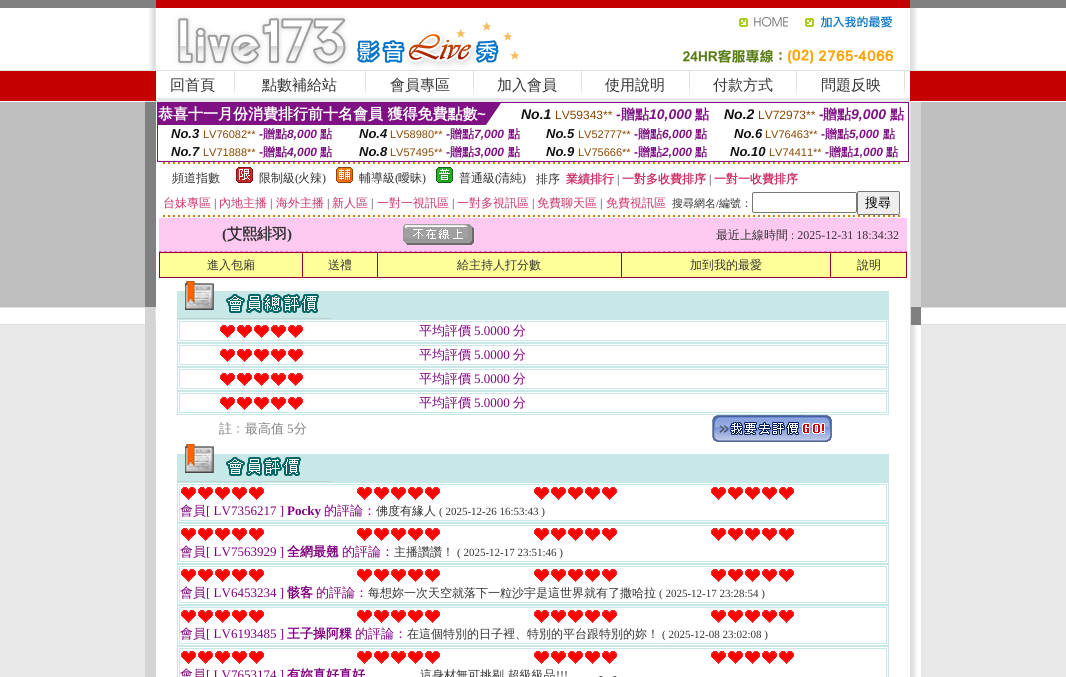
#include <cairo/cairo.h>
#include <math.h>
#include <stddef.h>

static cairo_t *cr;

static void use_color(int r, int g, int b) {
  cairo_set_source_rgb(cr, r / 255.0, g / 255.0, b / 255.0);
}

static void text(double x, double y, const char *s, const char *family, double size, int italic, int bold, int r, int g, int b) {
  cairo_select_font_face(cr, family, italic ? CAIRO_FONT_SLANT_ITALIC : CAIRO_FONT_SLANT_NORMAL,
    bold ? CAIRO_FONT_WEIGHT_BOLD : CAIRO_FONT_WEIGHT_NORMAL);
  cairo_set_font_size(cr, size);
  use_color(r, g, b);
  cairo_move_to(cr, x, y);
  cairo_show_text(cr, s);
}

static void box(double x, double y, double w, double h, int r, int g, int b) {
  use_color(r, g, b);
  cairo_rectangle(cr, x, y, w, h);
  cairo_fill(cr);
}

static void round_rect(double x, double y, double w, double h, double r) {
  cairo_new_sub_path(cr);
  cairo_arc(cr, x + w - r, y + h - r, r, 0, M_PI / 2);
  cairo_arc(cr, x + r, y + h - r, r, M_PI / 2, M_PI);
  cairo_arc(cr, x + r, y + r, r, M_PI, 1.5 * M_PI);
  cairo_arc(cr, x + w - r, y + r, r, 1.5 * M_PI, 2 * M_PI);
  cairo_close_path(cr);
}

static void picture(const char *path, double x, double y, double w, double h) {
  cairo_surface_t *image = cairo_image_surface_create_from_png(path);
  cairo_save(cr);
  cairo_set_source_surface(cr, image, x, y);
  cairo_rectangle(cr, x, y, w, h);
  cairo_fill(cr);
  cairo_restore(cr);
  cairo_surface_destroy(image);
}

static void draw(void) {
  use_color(255, 255, 255);
  cairo_paint(cr);
  picture("img_01.png", 0, 0, 1066, 677);
  box(145, 325, 11, 352, 212, 212, 212);
  picture("img_02.png", 145, 0, 11, 325);
  box(156, 70, 754, 607, 255, 255, 255);
  box(156, 0, 754, 8, 196, 0, 0);
  picture("img_03.png", 173, 15, 347, 55);
  picture("img_04.png", 739, 17, 49, 10);
  picture("img_05.png", 805, 16, 87, 12);
  picture("img_06.png", 682, 49, 211, 15);
  box(156, 70, 754, 1, 225, 225, 225);
  picture("img_07.png", 234, 71, 1, 25);
  picture("img_07.png", 365, 71, 1, 25);
  picture("img_07.png", 473, 71, 1, 25);
  picture("img_07.png", 581, 71, 1, 25);
  picture("img_07.png", 689, 71, 1, 25);
  picture("img_07.png", 796, 71, 1, 25);
  picture("img_07.png", 904, 71, 1, 25);
  box(156, 98, 754, 4, 233, 233, 233);
  cairo_rectangle(cr, 157.5, 102.5, 751, 59);
  use_color(127, 17, 132);
  cairo_set_line_width(cr, 1);
  cairo_stroke(cr);
  box(158, 103, 328, 22, 127, 17, 132);
  use_color(126, 17, 132);
  cairo_new_path(cr);
  cairo_move_to(cr, 486, 103);
  cairo_line_to(cr, 501, 103);
  cairo_line_to(cr, 486, 125);
  cairo_close_path(cr);
  cairo_fill(cr);
  picture("img_08.png", 163, 162, 737, 2);
  picture("img_09.png", 236, 167, 17, 16);
  picture("img_10.png", 336, 167, 17, 16);
  picture("img_11.png", 436, 167, 17, 16);
  round_rect(752.5, 192.5, 104, 20, 1.5);
  use_color(118, 118, 118);
  cairo_stroke(cr);
  use_color(239, 239, 239);
  round_rect(857.5, 191.5, 42, 23, 1.5);
  cairo_fill_preserve(cr);
  use_color(118, 118, 118);
  cairo_stroke(cr);
  picture("img_08.png", 163, 215, 737, 2);
  box(159, 218, 748, 34, 255, 201, 242);
  cairo_new_path(cr);
  cairo_move_to(cr, 159, 251.5);
  cairo_line_to(cr, 354, 251.5);
  use_color(245, 114, 207);
  cairo_set_dash(cr, (double[]){3, 2.05}, 2, 0);
  cairo_stroke(cr);
  cairo_new_path(cr);
  cairo_move_to(cr, 354, 251.5);
  cairo_line_to(cr, 522, 251.5);
  cairo_set_dash(cr, (double[]){3, 2}, 2, 0);
  cairo_stroke(cr);
  picture("img_12.png", 403, 224, 71, 21);
  cairo_new_path(cr);
  cairo_move_to(cr, 522, 251.5);
  cairo_line_to(cr, 907, 251.5);
  cairo_set_dash(cr, (double[]){3, 2.03}, 2, 0);
  cairo_stroke(cr);
  box(159, 252, 748, 1, 153, 0, 51);
  box(906, 252, 1, 26, 153, 0, 51);
  box(159, 277, 748, 1, 153, 0, 51);
  box(159, 252, 1, 26, 153, 0, 51);
  box(160, 253, 142, 24, 255, 255, 153);
  box(303, 253, 74, 24, 255, 255, 153);
  box(302, 252, 1, 26, 153, 0, 51);
  box(378, 253, 243, 24, 255, 255, 153);
  box(377, 252, 1, 26, 153, 0, 51);
  box(622, 253, 208, 24, 255, 255, 153);
  box(621, 252, 1, 26, 153, 0, 51);
  box(831, 253, 75, 24, 255, 255, 153);
  box(830, 252, 1, 26, 153, 0, 51);
  box(331, 291, 558, 28, 199, 232, 231);
  picture("img_13.png", 177, 281, 154, 38);
  cairo_rectangle(cr, 177.5, 319.5, 711, 23);
  cairo_set_dash(cr, NULL, 0, 0);
  cairo_stroke(cr);
  cairo_rectangle(cr, 179.5, 321.5, 707, 19);
  cairo_stroke(cr);
  picture("img_14.png", 220, 325, 15, 13);
  picture("img_14.png", 237, 325, 15, 13);
  picture("img_14.png", 254, 325, 15, 13);
  picture("img_14.png", 271, 325, 15, 13);
  picture("img_14.png", 288, 325, 15, 13);
  cairo_rectangle(cr, 177.5, 343.5, 711, 23);
  cairo_stroke(cr);
  cairo_rectangle(cr, 179.5, 345.5, 707, 19);
  cairo_stroke(cr);
  picture("img_14.png", 220, 349, 15, 13);
  picture("img_14.png", 237, 349, 15, 13);
  picture("img_14.png", 254, 349, 15, 13);
  picture("img_14.png", 271, 349, 15, 13);
  picture("img_14.png", 288, 349, 15, 13);
  cairo_rectangle(cr, 177.5, 367.5, 711, 23);
  cairo_stroke(cr);
  cairo_rectangle(cr, 179.5, 369.5, 707, 19);
  cairo_stroke(cr);
  picture("img_14.png", 220, 373, 15, 13);
  picture("img_14.png", 237, 373, 15, 13);
  picture("img_14.png", 254, 373, 15, 13);
  picture("img_14.png", 271, 373, 15, 13);
  picture("img_14.png", 288, 373, 15, 13);
  cairo_rectangle(cr, 177.5, 391.5, 711, 23);
  cairo_stroke(cr);
  cairo_rectangle(cr, 179.5, 393.5, 707, 19);
  cairo_stroke(cr);
  picture("img_14.png", 220, 397, 15, 13);
  picture("img_14.png", 237, 397, 15, 13);
  picture("img_14.png", 254, 397, 15, 13);
  picture("img_14.png", 271, 397, 15, 13);
  picture("img_14.png", 288, 397, 15, 13);
  picture("img_15.png", 712, 415, 120, 27);
  box(331, 454, 558, 28, 199, 232, 231);
  picture("img_16.png", 177, 444, 154, 38);
  cairo_rectangle(cr, 177.5, 482.5, 711, 40);
  cairo_stroke(cr);
  cairo_rectangle(cr, 179.5, 484.5, 707, 36);
  cairo_stroke(cr);
  picture("img_14.png", 181, 487, 15, 13);
  picture("img_14.png", 198, 487, 15, 13);
  picture("img_14.png", 215, 487, 15, 13);
  picture("img_14.png", 232, 487, 15, 13);
  picture("img_14.png", 249, 487, 15, 13);
  picture("img_14.png", 357, 487, 15, 13);
  picture("img_14.png", 374, 487, 15, 13);
  picture("img_14.png", 391, 487, 15, 13);
  picture("img_14.png", 408, 487, 15, 13);
  picture("img_14.png", 425, 487, 15, 13);
  picture("img_14.png", 534, 487, 15, 13);
  picture("img_14.png", 551, 487, 15, 13);
  picture("img_14.png", 568, 487, 15, 13);
  picture("img_14.png", 585, 487, 15, 13);
  picture("img_14.png", 602, 487, 15, 13);
  picture("img_14.png", 711, 487, 15, 13);
  picture("img_14.png", 728, 487, 15, 13);
  picture("img_14.png", 745, 487, 15, 13);
  picture("img_14.png", 762, 487, 15, 13);
  picture("img_14.png", 779, 487, 15, 13);
  cairo_rectangle(cr, 177.5, 523.5, 711, 40);
  cairo_stroke(cr);
  cairo_rectangle(cr, 179.5, 525.5, 707, 36);
  cairo_stroke(cr);
  picture("img_14.png", 181, 528, 15, 13);
  picture("img_14.png", 198, 528, 15, 13);
  picture("img_14.png", 215, 528, 15, 13);
  picture("img_14.png", 232, 528, 15, 13);
  picture("img_14.png", 249, 528, 15, 13);
  picture("img_14.png", 357, 528, 15, 13);
  picture("img_14.png", 374, 528, 15, 13);
  picture("img_14.png", 391, 528, 15, 13);
  picture("img_14.png", 408, 528, 15, 13);
  picture("img_14.png", 425, 528, 15, 13);
  picture("img_14.png", 534, 528, 15, 13);
  picture("img_14.png", 551, 528, 15, 13);
  picture("img_14.png", 568, 528, 15, 13);
  picture("img_14.png", 585, 528, 15, 13);
  picture("img_14.png", 602, 528, 15, 13);
  picture("img_14.png", 711, 528, 15, 13);
  picture("img_14.png", 728, 528, 15, 13);
  picture("img_14.png", 745, 528, 15, 13);
  picture("img_14.png", 762, 528, 15, 13);
  picture("img_14.png", 779, 528, 15, 13);
  cairo_rectangle(cr, 177.5, 564.5, 711, 40);
  cairo_stroke(cr);
  cairo_rectangle(cr, 179.5, 566.5, 707, 36);
  cairo_stroke(cr);
  picture("img_14.png", 181, 569, 15, 13);
  picture("img_14.png", 198, 569, 15, 13);
  picture("img_14.png", 215, 569, 15, 13);
  picture("img_14.png", 232, 569, 15, 13);
  picture("img_14.png", 249, 569, 15, 13);
  picture("img_14.png", 357, 569, 15, 13);
  picture("img_14.png", 374, 569, 15, 13);
  picture("img_14.png", 391, 569, 15, 13);
  picture("img_14.png", 408, 569, 15, 13);
  picture("img_14.png", 425, 569, 15, 13);
  picture("img_14.png", 534, 569, 15, 13);
  picture("img_14.png", 551, 569, 15, 13);
  picture("img_14.png", 568, 569, 15, 13);
  picture("img_14.png", 585, 569, 15, 13);
  picture("img_14.png", 602, 569, 15, 13);
  picture("img_14.png", 711, 569, 15, 13);
  picture("img_14.png", 728, 569, 15, 13);
  picture("img_14.png", 745, 569, 15, 13);
  picture("img_14.png", 762, 569, 15, 13);
  picture("img_14.png", 779, 569, 15, 13);
  cairo_rectangle(cr, 177.5, 605.5, 711, 40);
  cairo_stroke(cr);
  cairo_rectangle(cr, 179.5, 607.5, 707, 36);
  cairo_stroke(cr);
  picture("img_14.png", 181, 610, 15, 13);
  picture("img_14.png", 198, 610, 15, 13);
  picture("img_14.png", 215, 610, 15, 13);
  picture("img_14.png", 232, 610, 15, 13);
  picture("img_14.png", 249, 610, 15, 13);
  picture("img_14.png", 357, 610, 15, 13);
  picture("img_14.png", 374, 610, 15, 13);
  picture("img_14.png", 391, 610, 15, 13);
  picture("img_14.png", 408, 610, 15, 13);
  picture("img_14.png", 425, 610, 15, 13);
  picture("img_14.png", 534, 610, 15, 13);
  picture("img_14.png", 551, 610, 15, 13);
  picture("img_14.png", 568, 610, 15, 13);
  picture("img_14.png", 585, 610, 15, 13);
  picture("img_14.png", 602, 610, 15, 13);
  picture("img_14.png", 711, 610, 15, 13);
  picture("img_14.png", 728, 610, 15, 13);
  picture("img_14.png", 745, 610, 15, 13);
  picture("img_14.png", 762, 610, 15, 13);
  picture("img_14.png", 779, 610, 15, 13);
  cairo_rectangle(cr, 177.5, 646.5, 711, 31);
  cairo_stroke(cr);
  cairo_rectangle(cr, 179.5, 648.5, 707, 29);
  cairo_stroke(cr);
  picture("img_14.png", 181, 651, 15, 13);
  picture("img_14.png", 198, 651, 15, 13);
  picture("img_14.png", 215, 651, 15, 13);
  picture("img_14.png", 232, 651, 15, 13);
  picture("img_14.png", 249, 651, 15, 13);
  picture("img_14.png", 357, 651, 15, 13);
  picture("img_14.png", 374, 651, 15, 13);
  picture("img_14.png", 391, 651, 15, 13);
  picture("img_14.png", 408, 651, 15, 13);
  picture("img_14.png", 425, 651, 15, 13);
  picture("img_14.png", 534, 651, 15, 13);
  picture("img_14.png", 551, 651, 15, 13);
  picture("img_14.png", 568, 651, 15, 13);
  picture("img_14.png", 585, 651, 15, 13);
  picture("img_14.png", 602, 651, 15, 13);
  picture("img_14.png", 711, 651, 15, 13);
  picture("img_14.png", 728, 651, 15, 13);
  picture("img_14.png", 745, 651, 15, 13);
  picture("img_14.png", 762, 651, 15, 13);
  picture("img_14.png", 779, 651, 15, 13);
  picture("img_17.png", 910, 325, 11, 352);
  picture("img_18.png", 910, 0, 11, 325);
  text(170, 90, "回首頁", "WenQuanYi Zen Hei Medium", 15, 0, 0, 51, 51, 51);
  text(262, 90, "點數補給站", "WenQuanYi Zen Hei Medium", 15, 0, 0, 51, 51, 51);
  text(390, 90, "會員專區", "WenQuanYi Zen Hei Medium", 15, 0, 0, 51, 51, 51);
  text(497, 90, "加入會員", "WenQuanYi Zen Hei Medium", 15, 0, 0, 51, 51, 51);
  text(605, 90, "使用說明", "WenQuanYi Zen Hei Medium", 15, 0, 0, 51, 51, 51);
  text(713, 90, "付款方式", "WenQuanYi Zen Hei Medium", 15, 0, 0, 51, 51, 51);
  text(821, 90, "問題反映", "WenQuanYi Zen Hei Medium", 15, 0, 0, 51, 51, 51);
  text(158, 119, "恭喜十一月份消費排行前十名會員 獲得免費點數", "WenQuanYi Zen Hei", 15, 0, 1, 255, 255, 255);
  text(477, 119, "~", "Liberation Sans", 15, 0, 1, 255, 255, 255);
  text(521, 119, "No.1", "Liberation Sans", 14, 1, 1, 17, 17, 17);
  text(555, 119, "LV59343**", "Liberation Sans", 12, 0, 0, 140, 70, 0);
  text(616, 119, "-", "Liberation Sans", 14, 0, 1, 127, 17, 132);
  text(621, 119, "贈點", "WenQuanYi Zen Hei", 14, 0, 1, 127, 17, 132);
  text(649, 119, "10,000", "Liberation Sans", 14, 1, 1, 127, 17, 132);
  text(695, 119, "點", "WenQuanYi Zen Hei", 14, 0, 1, 127, 17, 132);
  text(724, 119, "No.2", "Liberation Sans", 14, 1, 1, 17, 17, 17);
  text(758, 119, "LV72973**", "Liberation Sans", 12, 0, 0, 140, 70, 0);
  text(819, 119, "-", "Liberation Sans", 14, 0, 1, 127, 17, 132);
  text(823, 119, "贈點", "WenQuanYi Zen Hei", 14, 0, 1, 127, 17, 132);
  text(851, 119, "9,000", "Liberation Sans", 14, 1, 1, 127, 17, 132);
  text(890, 119, "點", "WenQuanYi Zen Hei", 14, 0, 1, 127, 17, 132);
  text(171, 138, "No.3", "Liberation Sans", 13, 1, 1, 17, 17, 17);
  text(203, 138, "LV76082**", "Liberation Sans", 11, 0, 0, 140, 70, 0);
  text(259, 138, "-", "Liberation Sans", 12, 0, 1, 127, 17, 132);
  text(263, 138, "贈點", "WenQuanYi Zen Hei", 12, 0, 1, 127, 17, 132);
  text(287, 138, "8,000", "Liberation Sans", 12, 1, 1, 127, 17, 132);
  text(320, 138, "點", "WenQuanYi Zen Hei", 12, 0, 1, 127, 17, 132);
  text(359, 138, "No.4", "Liberation Sans", 13, 1, 1, 17, 17, 17);
  text(390, 138, "LV58980**", "Liberation Sans", 11, 0, 0, 140, 70, 0);
  text(446, 138, "-", "Liberation Sans", 12, 0, 1, 127, 17, 132);
  text(450, 138, "贈點", "WenQuanYi Zen Hei", 12, 0, 1, 127, 17, 132);
  text(474, 138, "7,000", "Liberation Sans", 12, 1, 1, 127, 17, 132);
  text(508, 138, "點", "WenQuanYi Zen Hei", 12, 0, 1, 127, 17, 132);
  text(546, 138, "No.5", "Liberation Sans", 13, 1, 1, 17, 17, 17);
  text(578, 138, "LV52777**", "Liberation Sans", 11, 0, 0, 140, 70, 0);
  text(634, 138, "-", "Liberation Sans", 12, 0, 1, 127, 17, 132);
  text(638, 138, "贈點", "WenQuanYi Zen Hei", 12, 0, 1, 127, 17, 132);
  text(662, 138, "6,000", "Liberation Sans", 12, 1, 1, 127, 17, 132);
  text(695, 138, "點", "WenQuanYi Zen Hei", 12, 0, 1, 127, 17, 132);
  text(734, 138, "No.6", "Liberation Sans", 13, 1, 1, 17, 17, 17);
  text(765, 138, "LV76463**", "Liberation Sans", 11, 0, 0, 140, 70, 0);
  text(821, 138, "-", "Liberation Sans", 12, 0, 1, 127, 17, 132);
  text(825, 138, "贈點", "WenQuanYi Zen Hei", 12, 0, 1, 127, 17, 132);
  text(849, 138, "5,000", "Liberation Sans", 12, 1, 1, 127, 17, 132);
  text(883, 138, "點", "WenQuanYi Zen Hei", 12, 0, 1, 127, 17, 132);
  text(171, 156, "No.7", "Liberation Sans", 13, 1, 1, 17, 17, 17);
  text(203, 156, "LV71888**", "Liberation Sans", 11, 0, 0, 140, 70, 0);
  text(259, 156, "-", "Liberation Sans", 12, 0, 1, 127, 17, 132);
  text(263, 156, "贈點", "WenQuanYi Zen Hei", 12, 0, 1, 127, 17, 132);
  text(287, 156, "4,000", "Liberation Sans", 12, 1, 1, 127, 17, 132);
  text(320, 156, "點", "WenQuanYi Zen Hei", 12, 0, 1, 127, 17, 132);
  text(359, 156, "No.8", "Liberation Sans", 13, 1, 1, 17, 17, 17);
  text(390, 156, "LV57495**", "Liberation Sans", 11, 0, 0, 140, 70, 0);
  text(446, 156, "-", "Liberation Sans", 12, 0, 1, 127, 17, 132);
  text(450, 156, "贈點", "WenQuanYi Zen Hei", 12, 0, 1, 127, 17, 132);
  text(474, 156, "3,000", "Liberation Sans", 12, 1, 1, 127, 17, 132);
  text(508, 156, "點", "WenQuanYi Zen Hei", 12, 0, 1, 127, 17, 132);
  text(546, 156, "No.9", "Liberation Sans", 13, 1, 1, 17, 17, 17);
  text(578, 156, "LV75666**", "Liberation Sans", 11, 0, 0, 140, 70, 0);
  text(634, 156, "-", "Liberation Sans", 12, 0, 1, 127, 17, 132);
  text(638, 156, "贈點", "WenQuanYi Zen Hei", 12, 0, 1, 127, 17, 132);
  text(662, 156, "2,000", "Liberation Sans", 12, 1, 1, 127, 17, 132);
  text(695, 156, "點", "WenQuanYi Zen Hei", 12, 0, 1, 127, 17, 132);
  text(730, 156, "No.10", "Liberation Sans", 13, 1, 1, 17, 17, 17);
  text(769, 156, "LV74411**", "Liberation Sans", 11, 0, 0, 140, 70, 0);
  text(825, 156, "-", "Liberation Sans", 12, 0, 1, 127, 17, 132);
  text(829, 156, "贈點", "WenQuanYi Zen Hei", 12, 0, 1, 127, 17, 132);
  text(853, 156, "1,000", "Liberation Sans", 12, 1, 1, 127, 17, 132);
  text(886, 156, "點", "WenQuanYi Zen Hei", 12, 0, 1, 127, 17, 132);
  text(172, 182, "頻道指數", "WenQuanYi Zen Hei Medium", 12, 0, 0, 51, 51, 51);
  text(259, 182, "限制級", "WenQuanYi Zen Hei Medium", 12, 0, 0, 51, 51, 51);
  text(295, 182, "(", "Liberation Serif", 12, 0, 0, 51, 51, 51);
  text(298, 182, "火辣", "WenQuanYi Zen Hei Medium", 12, 0, 0, 51, 51, 51);
  text(322, 182, ")", "Liberation Serif", 12, 0, 0, 51, 51, 51);
  text(359, 182, "輔導級", "WenQuanYi Zen Hei Medium", 12, 0, 0, 51, 51, 51);
  text(395, 182, "(", "Liberation Serif", 12, 0, 0, 51, 51, 51);
  text(398, 182, "曖昧", "WenQuanYi Zen Hei Medium", 12, 0, 0, 51, 51, 51);
  text(422, 182, ")", "Liberation Serif", 12, 0, 0, 51, 51, 51);
  text(459, 182, "普通級", "WenQuanYi Zen Hei Medium", 12, 0, 0, 51, 51, 51);
  text(495, 182, "(", "Liberation Serif", 12, 0, 0, 51, 51, 51);
  text(498, 182, "清純", "WenQuanYi Zen Hei Medium", 12, 0, 0, 51, 51, 51);
  text(522, 182, ")", "Liberation Serif", 12, 0, 0, 51, 51, 51);
  text(536, 183, "排序", "WenQuanYi Zen Hei Medium", 12, 0, 0, 51, 51, 51);
  text(566, 183, "業績排行", "WenQuanYi Zen Hei", 12, 0, 1, 204, 51, 102);
  text(617, 183, "|", "Liberation Serif", 12, 0, 0, 51, 51, 51);
  text(622, 183, "一對多收費排序", "WenQuanYi Zen Hei", 12, 0, 1, 204, 51, 102);
  text(709, 183, "|", "Liberation Serif", 12, 0, 0, 51, 51, 51);
  text(714, 183, "一對一收費排序", "WenQuanYi Zen Hei", 12, 0, 1, 204, 51, 102);
  text(163, 207, "台妹專區", "WenQuanYi Zen Hei Medium", 12, 0, 0, 204, 51, 102);
  text(214, 207, "|", "Liberation Serif", 12, 0, 0, 51, 51, 51);
  text(219, 207, "內地主播", "WenQuanYi Zen Hei Medium", 12, 0, 0, 204, 51, 102);
  text(270, 207, "|", "Liberation Serif", 12, 0, 0, 51, 51, 51);
  text(276, 207, "海外主播", "WenQuanYi Zen Hei Medium", 12, 0, 0, 204, 51, 102);
  text(327, 207, "|", "Liberation Serif", 12, 0, 0, 51, 51, 51);
  text(332, 207, "新人區", "WenQuanYi Zen Hei Medium", 12, 0, 0, 204, 51, 102);
  text(371, 207, "|", "Liberation Serif", 12, 0, 0, 51, 51, 51);
  text(377, 207, "一對一視訊區", "WenQuanYi Zen Hei Medium", 12, 0, 0, 204, 51, 102);
  text(452, 207, "|", "Liberation Serif", 12, 0, 0, 51, 51, 51);
  text(457, 207, "一對多視訊區", "WenQuanYi Zen Hei Medium", 12, 0, 0, 204, 51, 102);
  text(532, 207, "|", "Liberation Serif", 12, 0, 0, 51, 51, 51);
  text(537, 207, "免費聊天區", "WenQuanYi Zen Hei Medium", 12, 0, 0, 204, 51, 102);
  text(600, 207, "|", "Liberation Serif", 12, 0, 0, 51, 51, 51);
  text(606, 207, "免費視訊區", "WenQuanYi Zen Hei Medium", 12, 0, 0, 204, 51, 102);
  text(672, 207, "搜尋網名", "WenQuanYi Zen Hei Medium", 11, 0, 0, 51, 51, 51);
  text(716, 207, "/", "Liberation Serif", 11, 0, 0, 51, 51, 51);
  text(719, 207, "編號：", "WenQuanYi Zen Hei Medium", 11, 0, 0, 51, 51, 51);
  text(865, 207, "搜尋", "WenQuanYi Zen Hei Medium", 13, 0, 0, 0, 0, 0);
  text(222, 239, "(", "Liberation Serif", 15, 0, 1, 51, 51, 51);
  text(227, 239, "艾熙緋羽", "WenQuanYi Zen Hei", 15, 0, 1, 51, 51, 51);
  text(287, 239, ")", "Liberation Serif", 15, 0, 1, 51, 51, 51);
  text(716, 239, "最近上線時間", "WenQuanYi Zen Hei Medium", 12, 0, 0, 51, 51, 51);
  text(791, 239, ": 2025-12-31 18:34:32", "Liberation Serif", 12, 0, 0, 51, 51, 51);
  text(207, 269, "進入包廂", "WenQuanYi Zen Hei Medium", 12, 0, 0, 51, 51, 51);
  text(328, 269, "送禮", "WenQuanYi Zen Hei Medium", 12, 0, 0, 51, 51, 51);
  text(457, 269, "給主持人打分數", "WenQuanYi Zen Hei Medium", 12, 0, 0, 51, 51, 51);
  text(690, 269, "加到我的最愛", "WenQuanYi Zen Hei Medium", 12, 0, 0, 51, 51, 51);
  text(857, 269, "說明", "WenQuanYi Zen Hei Medium", 12, 0, 0, 51, 51, 51);
  text(419, 335, "平均評價", "WenQuanYi Zen Hei Medium", 13, 0, 0, 128, 0, 128);
  text(474, 335, "5.0000", "Liberation Serif", 13, 0, 0, 128, 0, 128);
  text(513, 335, "分", "WenQuanYi Zen Hei Medium", 13, 0, 0, 128, 0, 128);
  text(419, 359, "平均評價", "WenQuanYi Zen Hei Medium", 13, 0, 0, 128, 0, 128);
  text(474, 359, "5.0000", "Liberation Serif", 13, 0, 0, 128, 0, 128);
  text(513, 359, "分", "WenQuanYi Zen Hei Medium", 13, 0, 0, 128, 0, 128);
  text(419, 383, "平均評價", "WenQuanYi Zen Hei Medium", 13, 0, 0, 128, 0, 128);
  text(474, 383, "5.0000", "Liberation Serif", 13, 0, 0, 128, 0, 128);
  text(513, 383, "分", "WenQuanYi Zen Hei Medium", 13, 0, 0, 128, 0, 128);
  text(419, 407, "平均評價", "WenQuanYi Zen Hei Medium", 13, 0, 0, 128, 0, 128);
  text(474, 407, "5.0000", "Liberation Serif", 13, 0, 0, 128, 0, 128);
  text(513, 407, "分", "WenQuanYi Zen Hei Medium", 13, 0, 0, 128, 0, 128);
  text(219, 433, "註﹕最高值", "WenQuanYi Zen Hei Medium", 13, 0, 0, 128, 128, 128);
  text(287, 433, "5", "Liberation Serif", 13, 0, 0, 128, 128, 128);
  text(294, 433, "分", "WenQuanYi Zen Hei Medium", 13, 0, 0, 128, 128, 128);
  text(180, 515, "會員", "WenQuanYi Zen Hei Medium", 13, 0, 0, 128, 0, 128);
  text(206, 515, "[ LV7356217 ]", "Liberation Serif", 13, 0, 0, 128, 0, 128);
  text(287, 515, "Pocky", "Liberation Serif", 13, 0, 1, 128, 0, 128);
  text(324, 515, "的評論：", "WenQuanYi Zen Hei Medium", 13, 0, 0, 128, 0, 128);
  text(376, 515, "佛度有緣人", "WenQuanYi Zen Hei Medium", 12, 0, 0, 51, 51, 51);
  text(439, 515, "( 2025-12-26 16:53:43 )", "Liberation Serif", 11, 0, 0, 51, 51, 51);
  text(180, 556, "會員", "WenQuanYi Zen Hei Medium", 13, 0, 0, 128, 0, 128);
  text(206, 556, "[ LV7563929 ]", "Liberation Serif", 13, 0, 0, 128, 0, 128);
  text(287, 556, "全網最翹", "WenQuanYi Zen Hei", 13, 0, 1, 128, 0, 128);
  text(342, 556, "的評論：", "WenQuanYi Zen Hei Medium", 13, 0, 0, 128, 0, 128);
  text(394, 556, "主播讚讚！", "WenQuanYi Zen Hei Medium", 12, 0, 0, 51, 51, 51);
  text(457, 556, "( 2025-12-17 23:51:46 )", "Liberation Serif", 11, 0, 0, 51, 51, 51);
  text(180, 597, "會員", "WenQuanYi Zen Hei Medium", 13, 0, 0, 128, 0, 128);
  text(206, 597, "[ LV6453234 ]", "Liberation Serif", 13, 0, 0, 128, 0, 128);
  text(287, 597, "骸客", "WenQuanYi Zen Hei", 13, 0, 1, 128, 0, 128);
  text(316, 597, "的評論：", "WenQuanYi Zen Hei Medium", 13, 0, 0, 128, 0, 128);
  text(368, 597, "每想妳一次天空就落下一粒沙宇是這世界就有了撒哈拉", "WenQuanYi Zen Hei Medium", 12, 0, 0, 51, 51, 51);
  text(659, 597, "( 2025-12-17 23:28:54 )", "Liberation Serif", 11, 0, 0, 51, 51, 51);
  text(180, 638, "會員", "WenQuanYi Zen Hei Medium", 13, 0, 0, 128, 0, 128);
  text(206, 638, "[ LV6193485 ]", "Liberation Serif", 13, 0, 0, 128, 0, 128);
  text(287, 638, "王子操阿粿", "WenQuanYi Zen Hei", 13, 0, 1, 128, 0, 128);
  text(355, 638, "的評論：", "WenQuanYi Zen Hei Medium", 13, 0, 0, 128, 0, 128);
  text(407, 638, "在這個特別的日子裡、特別的平台跟特別的妳！", "WenQuanYi Zen Hei Medium", 12, 0, 0, 51, 51, 51);
  text(662, 638, "( 2025-12-08 23:02:08 )", "Liberation Serif", 11, 0, 0, 51, 51, 51);
  text(180, 679, "會員", "WenQuanYi Zen Hei Medium", 13, 0, 0, 128, 0, 128);
  text(206, 679, "[ LV7653174 ]", "Liberation Serif", 13, 0, 0, 128, 0, 128);
  text(287, 679, "有妳真好真好", "WenQuanYi Zen Hei", 13, 0, 1, 128, 0, 128);
  text(420, 679, "這身材無可挑剔 超級級品", "WenQuanYi Zen Hei Medium", 12, 0, 0, 51, 51, 51);
  text(556, 679, "!!!", "Liberation Serif", 12, 0, 0, 51, 51, 51);
  text(599, 679, "-", "Liberation Serif", 11, 0, 0, 51, 51, 51);
  text(613, 679, "-", "Liberation Serif", 11, 0, 0, 51, 51, 51);
}

int main(void) {
  cairo_surface_t *surface = cairo_image_surface_create(CAIRO_FORMAT_RGB24, 1066, 677);
  cr = cairo_create(surface);
  cairo_font_options_t *options = cairo_font_options_create();
  cairo_font_options_set_hint_metrics(options, CAIRO_HINT_METRICS_OFF);
  cairo_font_options_set_hint_style(options, CAIRO_HINT_STYLE_NONE);
  cairo_set_font_options(cr, options);
  cairo_set_miter_limit(cr, 4);
  draw();
  cairo_surface_write_to_png(surface, "out.png");
  cairo_font_options_destroy(options);
  cairo_destroy(cr);
  cairo_surface_destroy(surface);
  return 0;
}
